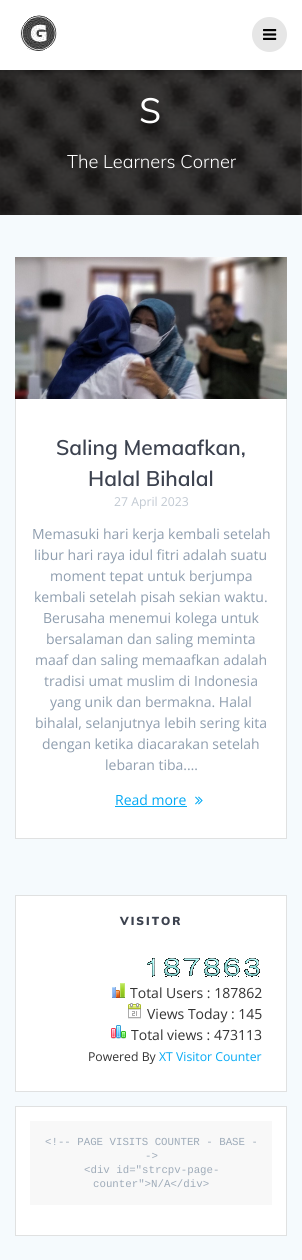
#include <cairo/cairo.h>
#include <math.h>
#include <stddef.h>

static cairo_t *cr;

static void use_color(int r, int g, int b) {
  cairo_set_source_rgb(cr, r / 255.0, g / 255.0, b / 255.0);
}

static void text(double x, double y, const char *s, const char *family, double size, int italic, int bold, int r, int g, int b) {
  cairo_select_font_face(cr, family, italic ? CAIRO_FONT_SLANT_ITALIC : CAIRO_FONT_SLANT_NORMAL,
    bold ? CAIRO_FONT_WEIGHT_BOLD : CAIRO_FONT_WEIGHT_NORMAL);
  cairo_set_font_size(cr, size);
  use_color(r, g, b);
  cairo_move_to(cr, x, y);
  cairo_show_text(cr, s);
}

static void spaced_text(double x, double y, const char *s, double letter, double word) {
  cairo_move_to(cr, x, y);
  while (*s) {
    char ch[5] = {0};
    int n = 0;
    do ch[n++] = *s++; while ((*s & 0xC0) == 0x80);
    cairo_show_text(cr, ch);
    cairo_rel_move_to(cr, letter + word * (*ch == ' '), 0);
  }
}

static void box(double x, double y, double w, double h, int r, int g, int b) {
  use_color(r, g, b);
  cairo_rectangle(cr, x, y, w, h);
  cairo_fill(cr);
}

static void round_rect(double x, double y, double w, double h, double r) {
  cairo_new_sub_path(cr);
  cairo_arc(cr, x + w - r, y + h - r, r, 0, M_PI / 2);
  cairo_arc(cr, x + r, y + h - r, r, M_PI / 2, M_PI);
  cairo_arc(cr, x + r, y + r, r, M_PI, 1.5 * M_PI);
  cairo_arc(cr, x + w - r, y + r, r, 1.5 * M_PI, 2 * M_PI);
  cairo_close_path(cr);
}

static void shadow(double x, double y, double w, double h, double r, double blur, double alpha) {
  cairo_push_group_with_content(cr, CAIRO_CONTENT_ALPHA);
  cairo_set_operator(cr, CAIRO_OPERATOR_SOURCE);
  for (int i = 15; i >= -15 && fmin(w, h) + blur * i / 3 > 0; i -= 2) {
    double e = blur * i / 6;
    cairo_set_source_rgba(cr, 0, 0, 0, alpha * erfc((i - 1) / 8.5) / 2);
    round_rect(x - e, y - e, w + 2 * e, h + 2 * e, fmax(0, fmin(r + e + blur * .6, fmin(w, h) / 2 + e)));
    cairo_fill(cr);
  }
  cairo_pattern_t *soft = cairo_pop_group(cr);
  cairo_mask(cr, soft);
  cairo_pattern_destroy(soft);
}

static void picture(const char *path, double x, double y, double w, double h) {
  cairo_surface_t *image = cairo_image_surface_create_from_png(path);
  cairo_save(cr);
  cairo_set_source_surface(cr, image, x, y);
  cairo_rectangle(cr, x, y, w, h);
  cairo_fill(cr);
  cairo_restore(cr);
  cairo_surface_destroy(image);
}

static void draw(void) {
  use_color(255, 255, 255);
  cairo_paint(cr);
  picture("img_03.png", 0, 70, 302, 145);
  use_color(0, 0, 0);
  shadow(-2, -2, 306, 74, 0, 2.5, 0.33);
  box(0, 0, 302, 70, 255, 255, 255);
  picture("img_01.png", 20, 15, 37, 36);
  use_color(230, 230, 230);
  cairo_arc(cr, 269.5, 34.5, 17.5, 0, 2 * M_PI);
  cairo_fill(cr);
  picture("img_02.png", 263, 29, 14, 11);
  box(0, 215, 302, 1045, 245, 250, 253);
  box(16, 399, 270, 439, 255, 255, 255);
  cairo_rectangle(cr, 15.5, 257.5, 271, 581);
  use_color(224, 225, 225);
  cairo_set_line_width(cr, 1);
  cairo_stroke(cr);
  picture("img_04.png", 15, 257, 272, 142);
  box(115, 806, 72, 1, 3, 169, 244);
  picture("img_05.png", 195, 796, 8, 9);
  use_color(255, 255, 255);
  cairo_rectangle(cr, 15.5, 895.5, 271, 196);
  cairo_fill_preserve(cr);
  use_color(224, 225, 225);
  cairo_stroke(cr);
  picture("img_06.png", 147, 958, 8, 19);
  picture("img_07.png", 164, 958, 16, 19);
  picture("img_08.png", 183, 958, 17, 18);
  picture("img_07.png", 204, 958, 16, 19);
  picture("img_09.png", 224, 958, 16, 19);
  picture("img_10.png", 244, 958, 16, 19);
  picture("img_11.png", 112, 983, 13, 15);
  picture("img_12.png", 128, 1003, 13, 16);
  picture("img_13.png", 111, 1025, 15, 14);
  use_color(255, 255, 255);
  cairo_rectangle(cr, 15.5, 1106.5, 271, 129);
  cairo_fill_preserve(cr);
  use_color(224, 225, 225);
  cairo_stroke(cr);
  box(30, 1121, 242, 84, 248, 248, 248);
  cairo_select_font_face(cr, "Muli Light", CAIRO_FONT_SLANT_NORMAL, CAIRO_FONT_WEIGHT_NORMAL);
  cairo_set_font_size(cr, 49);
  use_color(255, 255, 255);
  spaced_text(138, 123, "s", 1, 0);
  text(67, 168, "The Learners Corner", "Muli Light", 18.25, 0, 0, 255, 255, 255);
  text(56, 455, "Saling Memaafkan,", "Muli SemiBold", 21, 0, 0, 60, 66, 79);
  text(88, 486, "Halal Bihalal", "Muli SemiBold", 21, 0, 0, 60, 66, 79);
  text(114, 506, "27 April 2023", "Open Sans", 12.25, 0, 0, 193, 201, 210);
  text(32, 539, "Memasuki hari kerja kembali setelah", "Open Sans", 14, 0, 0, 142, 157, 174);
  text(34, 560, "libur hari raya idul fitri adalah suatu", "Open Sans", 14, 0, 0, 142, 157, 174);
  text(50, 581, "moment tepat untuk berjumpa", "Open Sans", 14, 0, 0, 142, 157, 174);
  text(34, 602, "kembali setelah pisah sekian waktu.", "Open Sans", 14, 0, 0, 142, 157, 174);
  text(43, 623, "Berusaha menemui kolega untuk", "Open Sans", 14, 0, 0, 142, 157, 174);
  text(46, 644, "bersalaman dan saling meminta", "Open Sans", 14, 0, 0, 142, 157, 174);
  text(35, 665, "maaf dan saling memaafkan adalah", "Open Sans", 14, 0, 0, 142, 157, 174);
  text(44, 686, "tradisi umat muslim di Indonesia", "Open Sans", 14, 0, 0, 142, 157, 174);
  text(50, 707, "yang unik dan bermakna. Halal", "Open Sans", 14, 0, 0, 142, 157, 174);
  text(35, 728, "bihalal, selanjutnya lebih sering kita", "Open Sans", 14, 0, 0, 142, 157, 174);
  text(42, 749, "dengan ketika diacarakan setelah", "Open Sans", 14, 0, 0, 142, 157, 174);
  text(105, 770, "lebaran tiba.…", "Open Sans", 14, 0, 0, 142, 157, 174);
  text(115, 805, "Read more", "Open Sans", 14, 0, 0, 3, 169, 244);
  cairo_select_font_face(cr, "Muli Black", CAIRO_FONT_SLANT_NORMAL, CAIRO_FONT_WEIGHT_NORMAL);
  cairo_set_font_size(cr, 11.5);
  use_color(60, 66, 79);
  spaced_text(120, 925, "VISITOR", 2, 0);
  text(130, 998, "Total Users : 187862", "Open Sans", 14, 0, 0, 51, 51, 51);
  text(147, 1019, "Views Today : 145", "Open Sans", 14, 0, 0, 51, 51, 51);
  text(131, 1040, "Total views : 473113", "Open Sans", 14, 0, 0, 51, 51, 51);
  text(88, 1061, "Powered By", "Open Sans", 12.25, 0, 0, 51, 51, 51);
  text(159, 1061, "XT Visitor Counter", "Open Sans", 12.25, 0, 0, 3, 169, 244);
  text(45, 1145, "<!-- PAGE VISITS COUNTER - BASE -", "Liberation Mono", 10.75, 0, 0, 158, 171, 185);
  text(145, 1159, "->", "Liberation Mono", 10.75, 0, 0, 158, 171, 185);
  text(84, 1173, "<div id=\"strcpv-page-", "Liberation Mono", 10.75, 0, 0, 158, 171, 185);
  text(93, 1187, "counter\">N/A</div>", "Liberation Mono", 10.75, 0, 0, 158, 171, 185);
}

int main(void) {
  cairo_surface_t *surface = cairo_image_surface_create(CAIRO_FORMAT_RGB24, 302, 1260);
  cr = cairo_create(surface);
  cairo_font_options_t *options = cairo_font_options_create();
  cairo_font_options_set_hint_metrics(options, CAIRO_HINT_METRICS_OFF);
  cairo_font_options_set_hint_style(options, CAIRO_HINT_STYLE_NONE);
  cairo_set_font_options(cr, options);
  cairo_set_miter_limit(cr, 4);
  draw();
  cairo_surface_write_to_png(surface, "out.png");
  cairo_font_options_destroy(options);
  cairo_destroy(cr);
  cairo_surface_destroy(surface);
  return 0;
}
